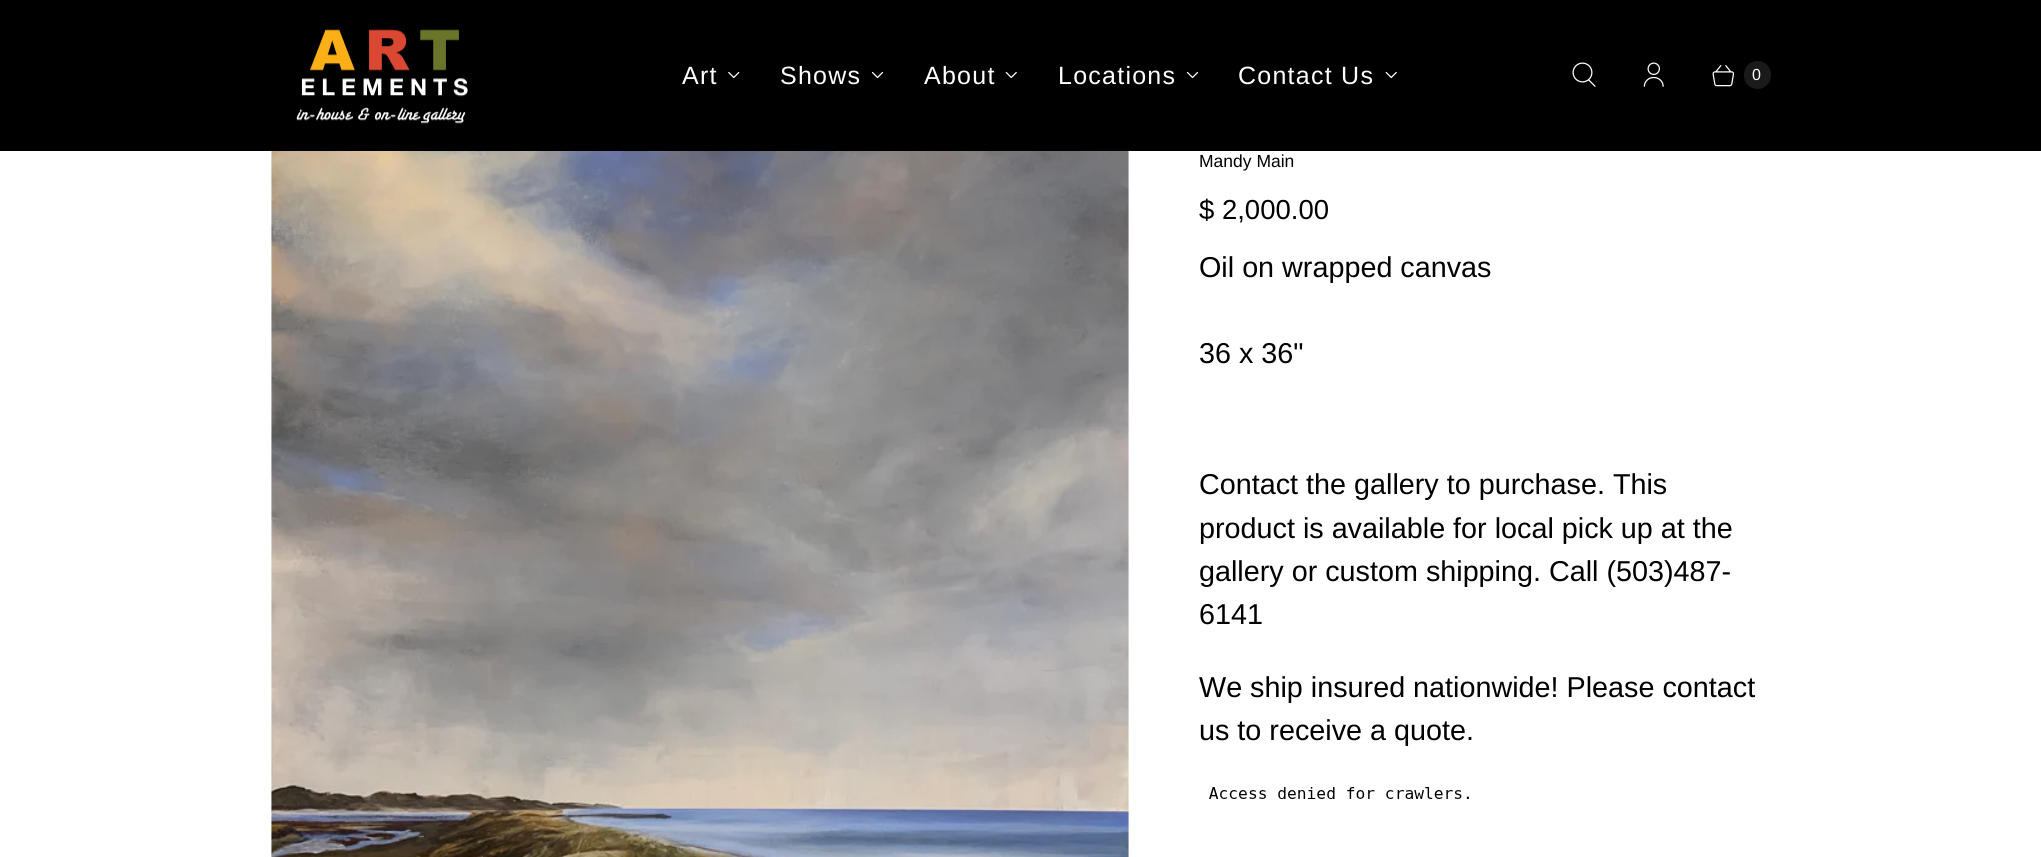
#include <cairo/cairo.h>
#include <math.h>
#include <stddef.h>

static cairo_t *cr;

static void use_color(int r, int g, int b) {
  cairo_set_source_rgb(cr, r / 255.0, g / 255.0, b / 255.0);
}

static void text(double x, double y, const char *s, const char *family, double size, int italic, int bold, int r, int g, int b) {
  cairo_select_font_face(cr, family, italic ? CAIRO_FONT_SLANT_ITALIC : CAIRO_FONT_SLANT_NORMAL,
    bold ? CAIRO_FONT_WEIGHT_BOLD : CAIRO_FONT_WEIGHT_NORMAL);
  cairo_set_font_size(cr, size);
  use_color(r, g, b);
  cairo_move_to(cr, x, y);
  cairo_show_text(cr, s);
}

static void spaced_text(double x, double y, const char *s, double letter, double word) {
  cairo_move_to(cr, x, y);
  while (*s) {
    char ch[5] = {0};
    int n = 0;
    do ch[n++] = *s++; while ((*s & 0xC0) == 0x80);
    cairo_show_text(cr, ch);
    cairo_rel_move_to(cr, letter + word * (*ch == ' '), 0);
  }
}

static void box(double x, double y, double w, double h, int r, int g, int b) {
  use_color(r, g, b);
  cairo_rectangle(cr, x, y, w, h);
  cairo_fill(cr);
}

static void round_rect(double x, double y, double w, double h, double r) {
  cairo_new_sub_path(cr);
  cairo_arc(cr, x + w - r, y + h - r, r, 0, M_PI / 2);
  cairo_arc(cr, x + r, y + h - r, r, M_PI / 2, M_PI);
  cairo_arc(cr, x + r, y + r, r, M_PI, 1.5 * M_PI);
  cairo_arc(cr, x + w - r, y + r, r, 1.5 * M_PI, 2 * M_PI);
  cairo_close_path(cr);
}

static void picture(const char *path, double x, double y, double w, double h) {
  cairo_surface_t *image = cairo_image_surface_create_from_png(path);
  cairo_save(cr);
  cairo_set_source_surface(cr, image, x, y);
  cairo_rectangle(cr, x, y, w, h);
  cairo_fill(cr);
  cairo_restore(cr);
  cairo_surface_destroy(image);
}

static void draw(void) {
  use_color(255, 255, 255);
  cairo_paint(cr);
  box(0, 0, 2041, 151, 0, 0, 0);
  picture("img_01.png", 296, 29, 172, 95);
  picture("img_02.png", 728, 71, 12, 8);
  picture("img_03.png", 871, 71, 13, 8);
  picture("img_04.png", 1005, 71, 12, 8);
  picture("img_03.png", 1186, 71, 13, 8);
  picture("img_04.png", 1385, 71, 12, 8);
  picture("img_05.png", 1572, 62, 24, 25);
  picture("img_06.png", 1643, 62, 21, 25);
  picture("img_07.png", 1712, 65, 23, 22);
  use_color(26, 26, 26);
  round_rect(1744, 61, 27, 28, 13.5);
  cairo_fill(cr);
  picture("img_08.png", 271, 151, 858, 706);
  picture("img_09.png", 1209, 787, 260, 12);
  cairo_select_font_face(cr, "Liberation Sans", CAIRO_FONT_SLANT_NORMAL, CAIRO_FONT_WEIGHT_NORMAL);
  cairo_set_font_size(cr, 25);
  use_color(255, 255, 255);
  spaced_text(682, 84, "Art", 1.25, 0);
  spaced_text(780, 84, "Shows", 1.25, 0);
  spaced_text(924, 84, "About", 1.25, 0);
  spaced_text(1058, 84, "Locations", 1.25, 0);
  spaced_text(1238, 84, "Contact Us", 1.25, 0);
  text(1752, 80, "0", "Liberation Sans", 16, 0, 0, 255, 255, 255);
  text(1199, 167, "Mandy Main", "Liberation Sans", 17.5, 0, 0, 0, 0, 0);
  text(1199, 219, "$ 2,000.00", "Liberation Sans", 27.5, 0, 0, 0, 0, 0);
  text(1199, 277, "Oil on wrapped canvas", "Liberation Sans", 28.75, 0, 0, 0, 0, 0);
  text(1199, 363, "36 x 36\"", "Liberation Sans", 28.75, 0, 0, 0, 0, 0);
  text(1199, 494, "Contact the gallery to purchase. This", "Liberation Sans", 28.75, 0, 0, 0, 0, 0);
  text(1199, 538, "product is available for local pick up at the", "Liberation Sans", 28.75, 0, 0, 0, 0, 0);
  text(1199, 581, "gallery or custom shipping. Call (503)487-", "Liberation Sans", 28.75, 0, 0, 0, 0, 0);
  text(1199, 624, "6141", "Liberation Sans", 28.75, 0, 0, 0, 0, 0);
  text(1199, 697, "We ship insured nationwide! Please contact", "Liberation Sans", 28.75, 0, 0, 0, 0, 0);
  text(1199, 740, "us to receive a quote.", "Liberation Sans", 28.75, 0, 0, 0, 0, 0);
}

int main(void) {
  cairo_surface_t *surface = cairo_image_surface_create(CAIRO_FORMAT_RGB24, 2041, 857);
  cr = cairo_create(surface);
  cairo_font_options_t *options = cairo_font_options_create();
  cairo_font_options_set_hint_metrics(options, CAIRO_HINT_METRICS_OFF);
  cairo_font_options_set_hint_style(options, CAIRO_HINT_STYLE_NONE);
  cairo_set_font_options(cr, options);
  cairo_set_miter_limit(cr, 4);
  draw();
  cairo_surface_write_to_png(surface, "out.png");
  cairo_font_options_destroy(options);
  cairo_destroy(cr);
  cairo_surface_destroy(surface);
  return 0;
}
